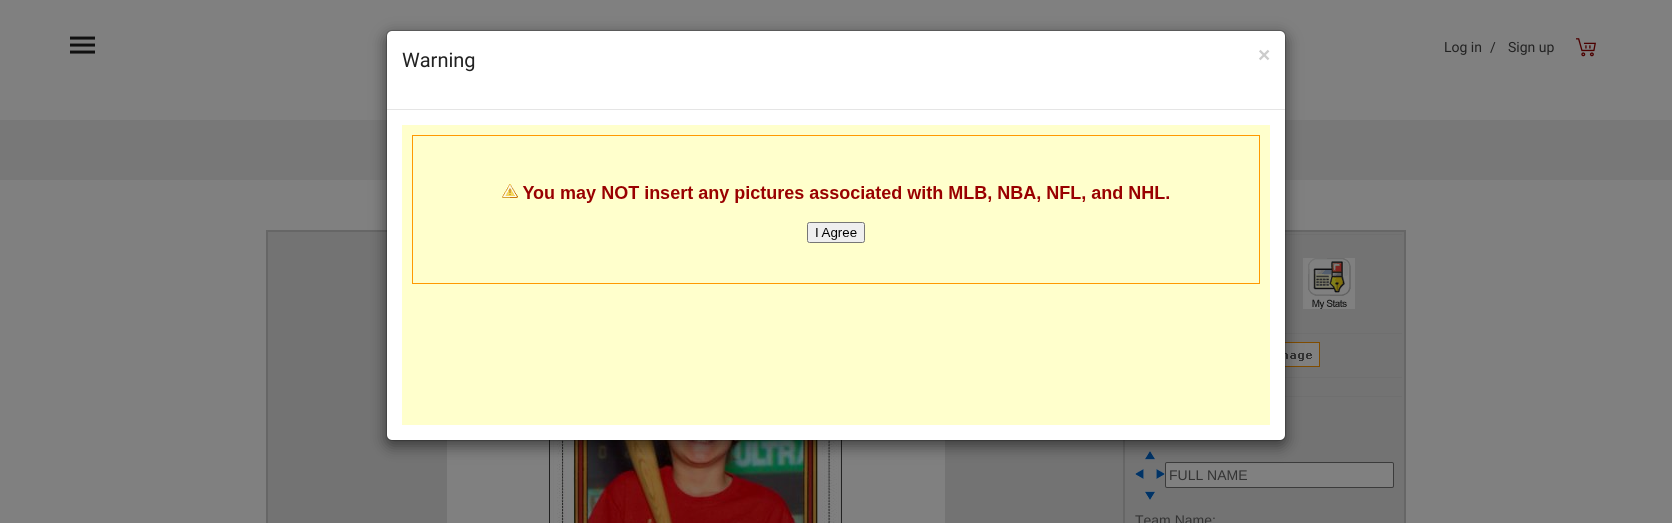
#include <cairo/cairo.h>
#include <math.h>
#include <stddef.h>

static cairo_t *cr;

static void use_color(int r, int g, int b) {
  cairo_set_source_rgb(cr, r / 255.0, g / 255.0, b / 255.0);
}

static void text(double x, double y, const char *s, const char *family, double size, int italic, int bold, int r, int g, int b) {
  cairo_select_font_face(cr, family, italic ? CAIRO_FONT_SLANT_ITALIC : CAIRO_FONT_SLANT_NORMAL,
    bold ? CAIRO_FONT_WEIGHT_BOLD : CAIRO_FONT_WEIGHT_NORMAL);
  cairo_set_font_size(cr, size);
  use_color(r, g, b);
  cairo_move_to(cr, x, y);
  cairo_show_text(cr, s);
}

static void box(double x, double y, double w, double h, int r, int g, int b) {
  use_color(r, g, b);
  cairo_rectangle(cr, x, y, w, h);
  cairo_fill(cr);
}

static void round_rect(double x, double y, double w, double h, double r) {
  cairo_new_sub_path(cr);
  cairo_arc(cr, x + w - r, y + h - r, r, 0, M_PI / 2);
  cairo_arc(cr, x + r, y + h - r, r, M_PI / 2, M_PI);
  cairo_arc(cr, x + r, y + r, r, M_PI, 1.5 * M_PI);
  cairo_arc(cr, x + w - r, y + r, r, 1.5 * M_PI, 2 * M_PI);
  cairo_close_path(cr);
}

static void shadow(double x, double y, double w, double h, double r, double blur, double alpha) {
  cairo_push_group_with_content(cr, CAIRO_CONTENT_ALPHA);
  cairo_set_operator(cr, CAIRO_OPERATOR_SOURCE);
  for (int i = 15; i >= -15 && fmin(w, h) + blur * i / 3 > 0; i -= 2) {
    double e = blur * i / 6;
    cairo_set_source_rgba(cr, 0, 0, 0, alpha * erfc((i - 1) / 8.5) / 2);
    round_rect(x - e, y - e, w + 2 * e, h + 2 * e, fmax(0, fmin(r + e + blur * .6, fmin(w, h) / 2 + e)));
    cairo_fill(cr);
  }
  cairo_pattern_t *soft = cairo_pop_group(cr);
  cairo_mask(cr, soft);
  cairo_pattern_destroy(soft);
}

static void picture(const char *path, double x, double y, double w, double h) {
  cairo_surface_t *image = cairo_image_surface_create_from_png(path);
  cairo_save(cr);
  cairo_set_source_surface(cr, image, x, y);
  cairo_rectangle(cr, x, y, w, h);
  cairo_fill(cr);
  cairo_restore(cr);
  cairo_surface_destroy(image);
}

static void draw(void) {
  use_color(128, 128, 128);
  cairo_paint(cr);
  box(0, 120, 1672, 60, 120, 120, 120);
  cairo_rectangle(cr, 266.5, 230.5, 1139, 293);
  use_color(102, 102, 102);
  cairo_set_line_width(cr, 1);
  cairo_stroke(cr);
  use_color(115, 115, 115);
  cairo_rectangle(cr, 267.5, 231.5, 856, 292);
  cairo_fill_preserve(cr);
  use_color(102, 102, 102);
  cairo_stroke(cr);
  box(447, 440, 498, 83, 128, 128, 128);
  picture("img_04.png", 549, 440, 293, 83);
  use_color(115, 115, 115);
  cairo_rectangle(cr, 1124.5, 231.5, 280, 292);
  cairo_fill_preserve(cr);
  use_color(102, 102, 102);
  cairo_stroke(cr);
  box(1285, 234, 117, 1, 111, 111, 111);
  picture("img_05.png", 1303, 258, 52, 51);
  box(1285, 333, 117, 1, 111, 111, 111);
  picture("img_06.png", 1285, 342, 35, 25);
  box(1285, 377, 117, 1, 111, 111, 111);
  box(1285, 396, 117, 1, 111, 111, 111);
  picture("img_07.png", 1145, 451, 10, 9);
  picture("img_08.png", 1135, 469, 9, 10);
  picture("img_09.png", 1156, 469, 9, 10);
  use_color(128, 128, 128);
  round_rect(1165.5, 462.5, 228, 25, 1.5);
  cairo_fill_preserve(cr);
  use_color(59, 59, 59);
  cairo_stroke(cr);
  use_color(0, 0, 0);
  shadow(386, 35, 900, 411, 6, 7.5, 0.5);
  use_color(255, 255, 255);
  round_rect(387, 31, 898, 409, 5);
  cairo_fill(cr);
  round_rect(386.5, 30.5, 899, 410, 5.5);
  cairo_set_source_rgba(cr, 0, 0, 0, 0.2);
  cairo_stroke(cr);
  box(387, 109, 898, 1, 229, 229, 229);
  picture("img_01.png", 402, 125, 868, 300);
  picture("img_02.png", 70, 36, 25, 18);
  picture("img_03.png", 1576, 38, 20, 19);
  picture("img_10.png", 1145, 491, 10, 9);
  text(402, 67, "Warning", "Roboto", 20, 0, 0, 34, 34, 34);
  text(1258, 62, "×", "Liberation Sans", 21, 0, 1, 204, 204, 204);
  text(1444, 52, "Log in", "Roboto", 14, 0, 0, 34, 34, 34);
  text(1490, 52, "/", "Roboto", 14, 0, 0, 34, 34, 34);
  text(1508, 52, "Sign up", "Roboto", 14, 0, 0, 34, 34, 34);
  text(1169, 480, "FULL NAME", "Liberation Sans", 14, 0, 0, 51, 51, 51);
  text(1135, 525, "Team Name:", "Liberation Sans", 14, 0, 0, 51, 51, 51);
}

int main(void) {
  cairo_surface_t *surface = cairo_image_surface_create(CAIRO_FORMAT_RGB24, 1672, 523);
  cr = cairo_create(surface);
  cairo_font_options_t *options = cairo_font_options_create();
  cairo_font_options_set_hint_metrics(options, CAIRO_HINT_METRICS_OFF);
  cairo_font_options_set_hint_style(options, CAIRO_HINT_STYLE_NONE);
  cairo_set_font_options(cr, options);
  cairo_set_miter_limit(cr, 4);
  draw();
  cairo_surface_write_to_png(surface, "out.png");
  cairo_font_options_destroy(options);
  cairo_destroy(cr);
  cairo_surface_destroy(surface);
  return 0;
}
